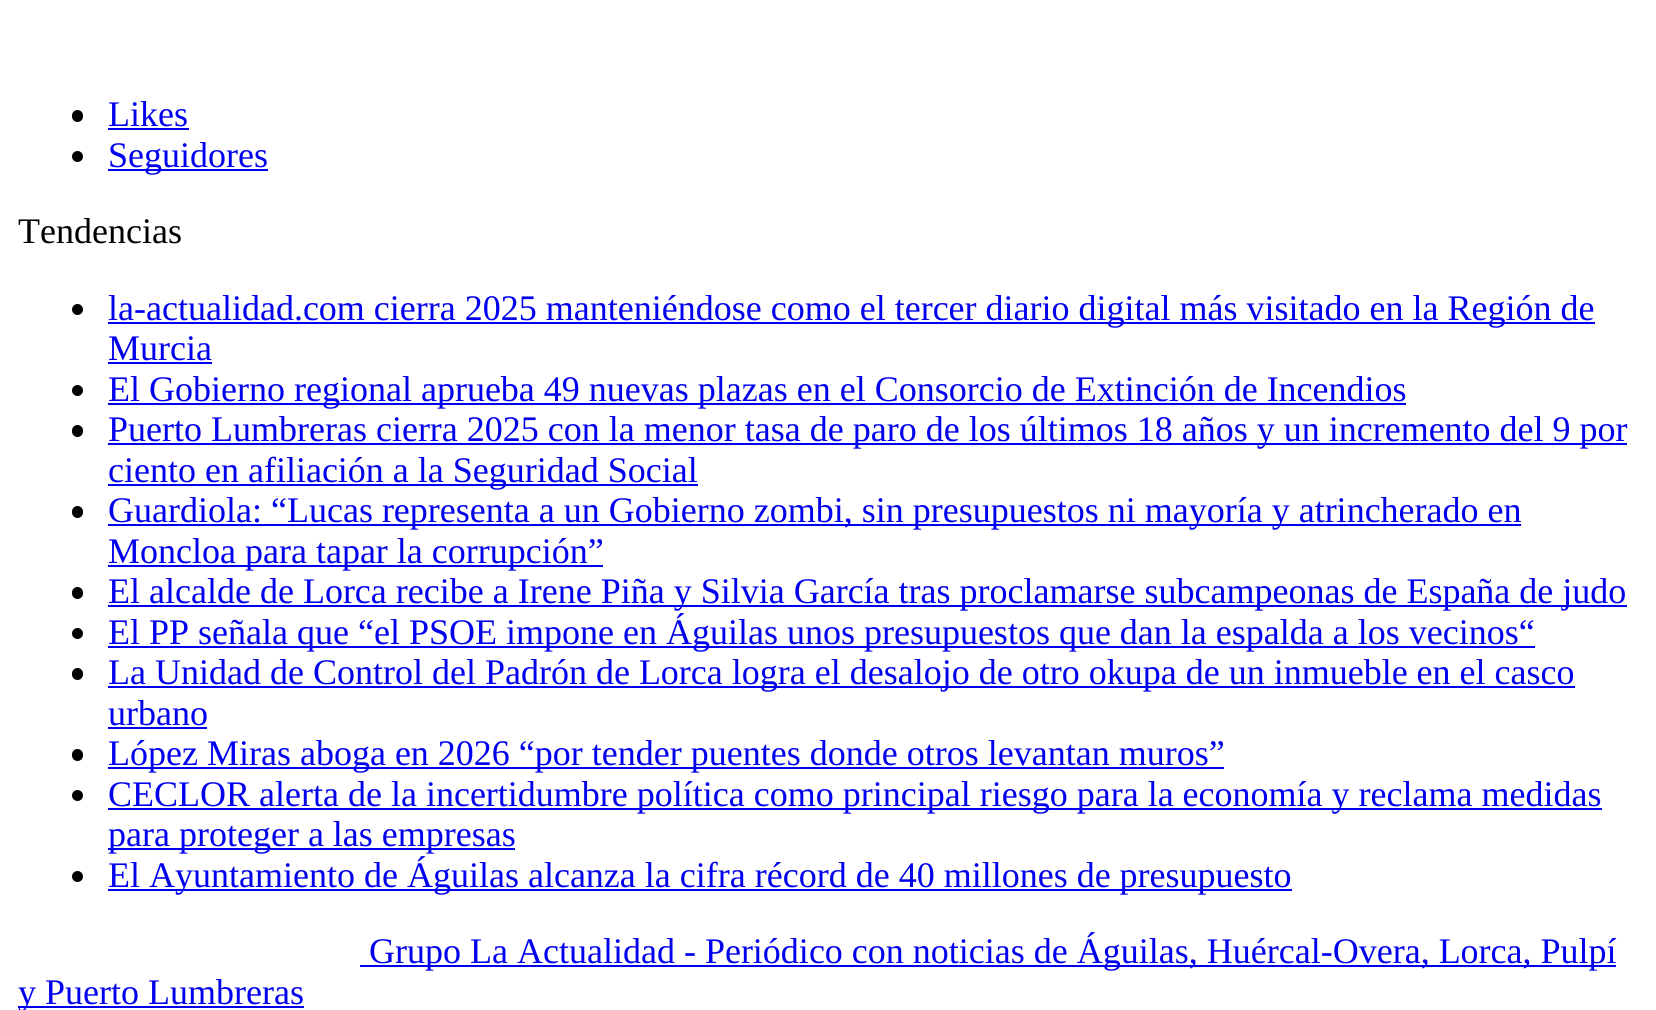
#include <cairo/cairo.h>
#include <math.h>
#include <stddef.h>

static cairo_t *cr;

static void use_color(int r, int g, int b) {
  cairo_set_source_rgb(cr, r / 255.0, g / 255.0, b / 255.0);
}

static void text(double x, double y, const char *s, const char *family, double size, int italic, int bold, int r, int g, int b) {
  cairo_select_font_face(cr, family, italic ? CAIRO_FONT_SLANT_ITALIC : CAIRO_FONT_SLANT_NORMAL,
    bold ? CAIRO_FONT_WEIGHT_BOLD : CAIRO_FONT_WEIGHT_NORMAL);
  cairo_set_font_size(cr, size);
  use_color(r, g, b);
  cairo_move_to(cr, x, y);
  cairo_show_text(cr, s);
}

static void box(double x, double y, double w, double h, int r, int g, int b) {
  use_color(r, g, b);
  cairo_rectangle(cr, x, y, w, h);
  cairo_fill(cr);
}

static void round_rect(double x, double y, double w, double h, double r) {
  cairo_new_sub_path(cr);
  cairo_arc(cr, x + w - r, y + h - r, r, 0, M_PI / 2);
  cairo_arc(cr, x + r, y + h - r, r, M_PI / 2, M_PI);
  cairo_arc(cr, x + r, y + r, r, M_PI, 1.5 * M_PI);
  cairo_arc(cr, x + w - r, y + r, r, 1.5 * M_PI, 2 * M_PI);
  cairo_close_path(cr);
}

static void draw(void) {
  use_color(255, 255, 255);
  cairo_paint(cr);
  use_color(0, 0, 0);
  round_rect(72, 110, 11, 12, 5.5);
  cairo_fill(cr);
  box(108, 128, 81, 2, 0, 0, 238);
  use_color(0, 0, 0);
  cairo_arc(cr, 77.5, 156.5, 5.5, 0, 2 * M_PI);
  cairo_fill(cr);
  box(108, 169, 160, 2, 0, 0, 238);
  use_color(0, 0, 0);
  cairo_arc(cr, 77.5, 309.5, 5.5, 0, 2 * M_PI);
  cairo_fill(cr);
  box(108, 322, 1487, 2, 0, 0, 238);
  box(108, 362, 104, 2, 0, 0, 238);
  use_color(0, 0, 0);
  cairo_arc(cr, 77.5, 390.5, 5.5, 0, 2 * M_PI);
  cairo_fill(cr);
  box(108, 403, 1298, 2, 0, 0, 238);
  use_color(0, 0, 0);
  round_rect(72, 425, 11, 12, 5.5);
  cairo_fill(cr);
  box(108, 443, 1519, 2, 0, 0, 238);
  box(108, 484, 590, 2, 0, 0, 238);
  use_color(0, 0, 0);
  round_rect(72, 506, 11, 12, 5.5);
  cairo_fill(cr);
  box(108, 524, 1413, 2, 0, 0, 238);
  box(108, 565, 495, 2, 0, 0, 238);
  use_color(0, 0, 0);
  round_rect(72, 587, 11, 12, 5.5);
  cairo_fill(cr);
  box(108, 605, 1519, 2, 0, 0, 238);
  use_color(0, 0, 0);
  cairo_arc(cr, 77.5, 633.5, 5.5, 0, 2 * M_PI);
  cairo_fill(cr);
  box(108, 646, 1427, 2, 0, 0, 238);
  use_color(0, 0, 0);
  round_rect(72, 668, 11, 12, 5.5);
  cairo_fill(cr);
  box(108, 686, 1467, 2, 0, 0, 238);
  box(108, 727, 99, 2, 0, 0, 238);
  use_color(0, 0, 0);
  round_rect(72, 749, 11, 12, 5.5);
  cairo_fill(cr);
  box(108, 767, 1116, 2, 0, 0, 238);
  use_color(0, 0, 0);
  cairo_arc(cr, 77.5, 795.5, 5.5, 0, 2 * M_PI);
  cairo_fill(cr);
  box(108, 808, 1494, 2, 0, 0, 238);
  box(108, 848, 407, 2, 0, 0, 238);
  use_color(0, 0, 0);
  cairo_arc(cr, 77.5, 876.5, 5.5, 0, 2 * M_PI);
  cairo_fill(cr);
  box(108, 889, 1184, 2, 0, 0, 238);
  box(360, 965, 1256, 2, 0, 0, 238);
  box(18, 1006, 286, 2, 0, 0, 238);
  text(108, 126, "Likes", "Liberation Serif", 36, 0, 0, 0, 0, 238);
  text(108, 167, "Seguidores", "Liberation Serif", 36, 0, 0, 0, 0, 238);
  text(18, 243, "Tendencias", "Liberation Serif", 36, 0, 0, 0, 0, 0);
  text(108, 320, "la-actualidad.com cierra 2025 manteniéndose como el tercer diario digital más visitado en la Región de", "Liberation Serif", 36, 0, 0, 0, 0, 238);
  text(108, 360, "Murcia", "Liberation Serif", 36, 0, 0, 0, 0, 238);
  text(108, 401, "El Gobierno regional aprueba 49 nuevas plazas en el Consorcio de Extinción de Incendios", "Liberation Serif", 36, 0, 0, 0, 0, 238);
  text(108, 441, "Puerto Lumbreras cierra 2025 con la menor tasa de paro de los últimos 18 años y un incremento del 9 por", "Liberation Serif", 36, 0, 0, 0, 0, 238);
  text(108, 482, "ciento en afiliación a la Seguridad Social", "Liberation Serif", 36, 0, 0, 0, 0, 238);
  text(108, 522, "Guardiola: “Lucas representa a un Gobierno zombi, sin presupuestos ni mayoría y atrincherado en", "Liberation Serif", 36, 0, 0, 0, 0, 238);
  text(108, 563, "Moncloa para tapar la corrupción”", "Liberation Serif", 36, 0, 0, 0, 0, 238);
  text(108, 603, "El alcalde de Lorca recibe a Irene Piña y Silvia García tras proclamarse subcampeonas de España de judo", "Liberation Serif", 36, 0, 0, 0, 0, 238);
  text(108, 644, "El PP señala que “el PSOE impone en Águilas unos presupuestos que dan la espalda a los vecinos“", "Liberation Serif", 36, 0, 0, 0, 0, 238);
  text(108, 684, "La Unidad de Control del Padrón de Lorca logra el desalojo de otro okupa de un inmueble en el casco", "Liberation Serif", 36, 0, 0, 0, 0, 238);
  text(108, 725, "urbano", "Liberation Serif", 36, 0, 0, 0, 0, 238);
  text(108, 765, "López Miras aboga en 2026 “por tender puentes donde otros levantan muros”", "Liberation Serif", 36, 0, 0, 0, 0, 238);
  text(108, 806, "CECLOR alerta de la incertidumbre política como principal riesgo para la economía y reclama medidas", "Liberation Serif", 36, 0, 0, 0, 0, 238);
  text(108, 846, "para proteger a las empresas", "Liberation Serif", 36, 0, 0, 0, 0, 238);
  text(108, 887, "El Ayuntamiento de Águilas alcanza la cifra récord de 40 millones de presupuesto", "Liberation Serif", 36, 0, 0, 0, 0, 238);
  text(369, 963, "Grupo La Actualidad - Periódico con noticias de Águilas, Huércal-Overa, Lorca, Pulpí", "Liberation Serif", 36, 0, 0, 0, 0, 238);
  text(18, 1004, "y Puerto Lumbreras", "Liberation Serif", 36, 0, 0, 0, 0, 238);
}

int main(void) {
  cairo_surface_t *surface = cairo_image_surface_create(CAIRO_FORMAT_RGB24, 1656, 1010);
  cr = cairo_create(surface);
  cairo_font_options_t *options = cairo_font_options_create();
  cairo_font_options_set_hint_metrics(options, CAIRO_HINT_METRICS_OFF);
  cairo_font_options_set_hint_style(options, CAIRO_HINT_STYLE_NONE);
  cairo_set_font_options(cr, options);
  cairo_set_miter_limit(cr, 4);
  draw();
  cairo_surface_write_to_png(surface, "out.png");
  cairo_font_options_destroy(options);
  cairo_destroy(cr);
  cairo_surface_destroy(surface);
  return 0;
}
